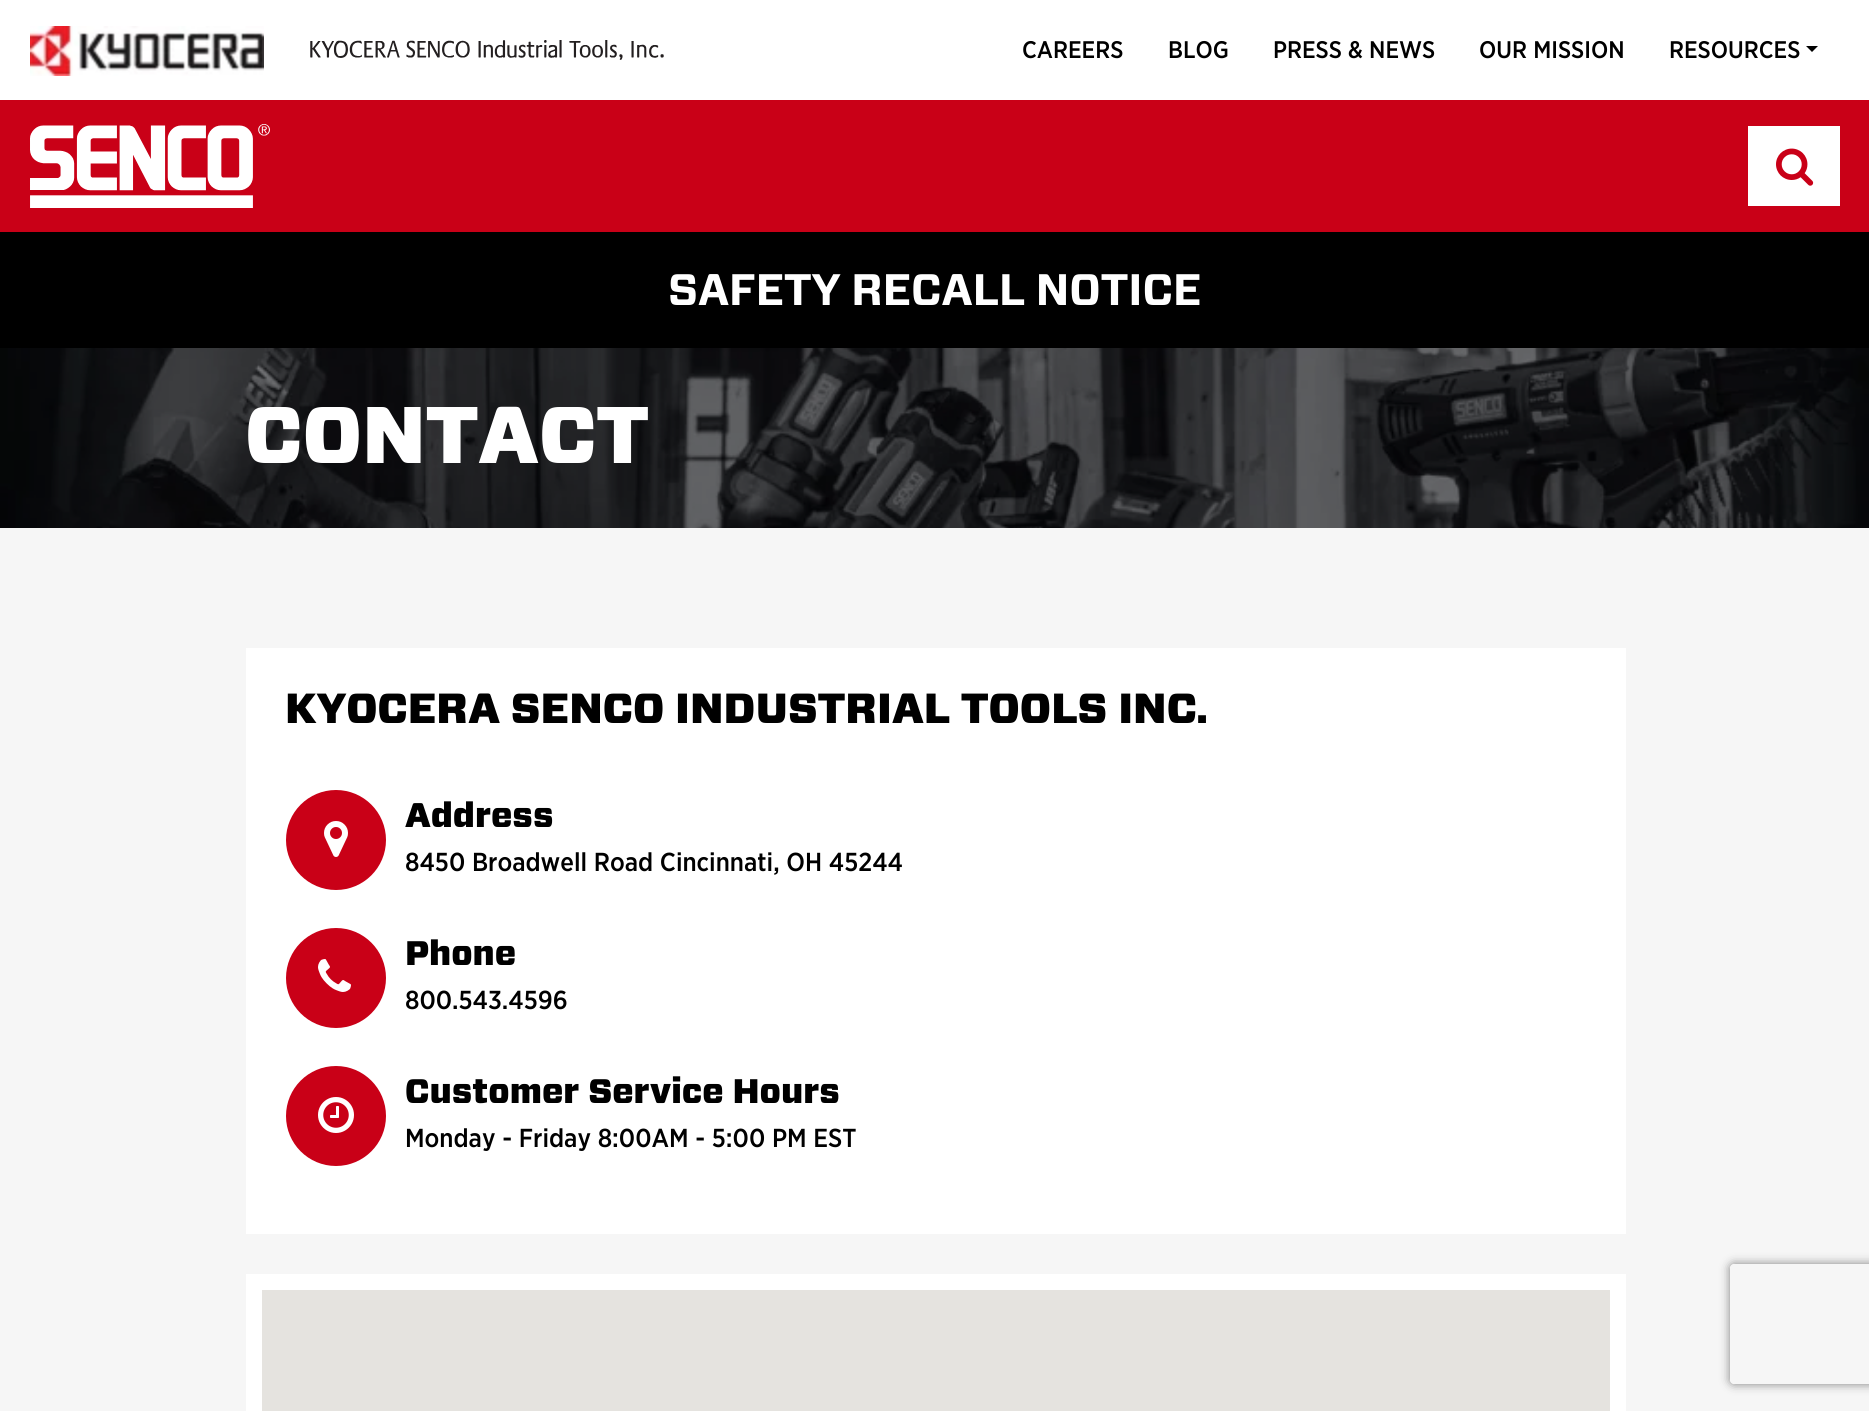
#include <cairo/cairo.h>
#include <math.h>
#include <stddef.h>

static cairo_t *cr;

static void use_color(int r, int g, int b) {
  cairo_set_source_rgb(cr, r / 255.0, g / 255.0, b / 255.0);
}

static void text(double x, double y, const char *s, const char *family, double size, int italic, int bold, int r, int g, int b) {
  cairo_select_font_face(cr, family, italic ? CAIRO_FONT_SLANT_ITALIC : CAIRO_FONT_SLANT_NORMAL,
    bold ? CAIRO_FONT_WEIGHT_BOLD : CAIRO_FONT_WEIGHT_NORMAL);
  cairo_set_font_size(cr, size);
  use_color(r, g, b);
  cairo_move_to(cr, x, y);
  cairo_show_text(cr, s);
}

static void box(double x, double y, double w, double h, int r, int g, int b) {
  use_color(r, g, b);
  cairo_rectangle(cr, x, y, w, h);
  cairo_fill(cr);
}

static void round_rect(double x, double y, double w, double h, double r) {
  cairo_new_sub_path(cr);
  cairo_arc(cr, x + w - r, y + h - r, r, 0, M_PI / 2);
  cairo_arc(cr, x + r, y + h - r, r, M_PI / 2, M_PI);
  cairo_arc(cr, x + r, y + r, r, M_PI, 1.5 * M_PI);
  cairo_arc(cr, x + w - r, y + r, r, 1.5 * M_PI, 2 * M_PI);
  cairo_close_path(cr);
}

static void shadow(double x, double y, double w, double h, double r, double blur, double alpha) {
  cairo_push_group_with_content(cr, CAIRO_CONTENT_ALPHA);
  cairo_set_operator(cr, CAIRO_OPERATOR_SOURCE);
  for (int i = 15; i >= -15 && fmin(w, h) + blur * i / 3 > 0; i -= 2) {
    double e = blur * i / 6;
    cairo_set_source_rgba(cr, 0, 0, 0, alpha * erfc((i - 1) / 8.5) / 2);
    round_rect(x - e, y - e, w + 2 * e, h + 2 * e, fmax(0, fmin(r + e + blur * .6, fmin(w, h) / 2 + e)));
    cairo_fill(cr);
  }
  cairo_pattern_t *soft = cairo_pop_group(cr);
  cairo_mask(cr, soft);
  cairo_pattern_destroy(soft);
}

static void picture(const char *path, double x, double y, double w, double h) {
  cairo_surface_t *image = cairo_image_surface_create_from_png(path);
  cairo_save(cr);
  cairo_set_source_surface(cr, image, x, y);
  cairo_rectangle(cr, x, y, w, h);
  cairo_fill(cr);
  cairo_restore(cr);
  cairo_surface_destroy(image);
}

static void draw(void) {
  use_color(255, 255, 255);
  cairo_paint(cr);
  picture("img_01.png", 30, 26, 234, 50);
  picture("img_02.png", 310, 40, 354, 20);
  use_color(0, 0, 0);
  cairo_new_path(cr);
  cairo_move_to(cr, 1806, 46);
  cairo_line_to(cr, 1818, 46);
  cairo_line_to(cr, 1812, 52);
  cairo_close_path(cr);
  cairo_fill(cr);
  box(0, 100, 1869, 132, 201, 0, 23);
  picture("img_03.png", 30, 124, 240, 84);
  box(1748, 126, 92, 80, 255, 255, 255);
  picture("img_04.png", 1776, 148, 38, 38);
  box(0, 232, 1869, 116, 0, 0, 0);
  picture("img_05.png", 0, 348, 1869, 180);
  box(0, 528, 1869, 883, 246, 246, 246);
  box(246, 648, 1380, 586, 255, 255, 255);
  use_color(201, 0, 23);
  cairo_arc(cr, 336, 840, 50, 0, 2 * M_PI);
  cairo_fill(cr);
  picture("img_06.png", 324, 821, 24, 36);
  cairo_arc(cr, 336, 978, 50, 0, 2 * M_PI);
  cairo_fill(cr);
  picture("img_07.png", 318, 959, 33, 33);
  cairo_arc(cr, 336, 1116, 50, 0, 2 * M_PI);
  cairo_fill(cr);
  picture("img_08.png", 318, 1097, 36, 36);
  cairo_rectangle(cr, 254, 1282, 1364, 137);
  use_color(255, 255, 255);
  cairo_set_line_width(cr, 16);
  cairo_stroke(cr);
  box(262, 1290, 1348, 121, 229, 227, 223);
  cairo_save(cr);
  cairo_set_fill_rule(cr, CAIRO_FILL_RULE_EVEN_ODD);
  cairo_new_path(cr);
  cairo_move_to(cr, 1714, 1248);
  cairo_line_to(cr, 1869, 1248);
  cairo_line_to(cr, 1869, 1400);
  cairo_line_to(cr, 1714, 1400);
  cairo_close_path(cr);
  cairo_move_to(cr, 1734, 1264);
  cairo_line_to(cr, 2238, 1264);
  cairo_curve_to(cr, 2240, 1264, 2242, 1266, 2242, 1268);
  cairo_line_to(cr, 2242, 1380);
  cairo_curve_to(cr, 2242, 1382, 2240, 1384, 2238, 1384);
  cairo_line_to(cr, 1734, 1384);
  cairo_curve_to(cr, 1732, 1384, 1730, 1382, 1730, 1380);
  cairo_line_to(cr, 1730, 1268);
  cairo_curve_to(cr, 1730, 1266, 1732, 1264, 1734, 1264);
  cairo_close_path(cr);
  cairo_clip(cr);
  use_color(128, 128, 128);
  shadow(1730, 1264, 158, 120, 4, 5, 1);
  cairo_restore(cr);
  text(1022, 58, "CAREERS", "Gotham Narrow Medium", 24, 0, 0, 0, 0, 0);
  text(1168, 58, "BLOG", "Gotham Narrow Medium", 24, 0, 0, 0, 0, 0);
  text(1273, 58, "PRESS & NEWS", "Gotham Narrow Medium", 24, 0, 0, 0, 0, 0);
  text(1479, 58, "OUR MISSION", "Gotham Narrow Medium", 24, 0, 0, 0, 0, 0);
  text(1669, 58, "RESOURCES", "Gotham Narrow Medium", 24, 0, 0, 0, 0, 0);
  text(668, 305, "SAFETY RECALL NOTICE", "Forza", 44, 0, 1, 255, 255, 255);
  text(245, 463, "CONTACT", "Forza Black", 80, 0, 0, 255, 255, 255);
  text(285, 723, "KYOCERA SENCO INDUSTRIAL TOOLS INC.", "Forza Black", 42, 0, 0, 0, 0, 0);
  text(405, 827, "Address", "Forza Black", 34, 0, 0, 0, 0, 0);
  text(405, 871, "8450 Broadwell Road Cincinnati, OH 45244", "Gotham Narrow Medium", 26, 0, 0, 0, 0, 0);
  text(405, 965, "Phone", "Forza Black", 34, 0, 0, 0, 0, 0);
  text(405, 1009, "800.543.4596", "Gotham Narrow Medium", 26, 0, 0, 0, 0, 0);
  text(405, 1103, "Customer Service Hours", "Forza Black", 34, 0, 0, 0, 0, 0);
  text(405, 1147, "Monday - Friday 8:00AM - 5:00 PM EST", "Gotham Narrow Medium", 26, 0, 0, 0, 0, 0);
}

int main(void) {
  cairo_surface_t *surface = cairo_image_surface_create(CAIRO_FORMAT_RGB24, 1869, 1411);
  cr = cairo_create(surface);
  cairo_font_options_t *options = cairo_font_options_create();
  cairo_font_options_set_hint_metrics(options, CAIRO_HINT_METRICS_OFF);
  cairo_font_options_set_hint_style(options, CAIRO_HINT_STYLE_NONE);
  cairo_set_font_options(cr, options);
  cairo_set_miter_limit(cr, 4);
  draw();
  cairo_surface_write_to_png(surface, "out.png");
  cairo_font_options_destroy(options);
  cairo_destroy(cr);
  cairo_surface_destroy(surface);
  return 0;
}
